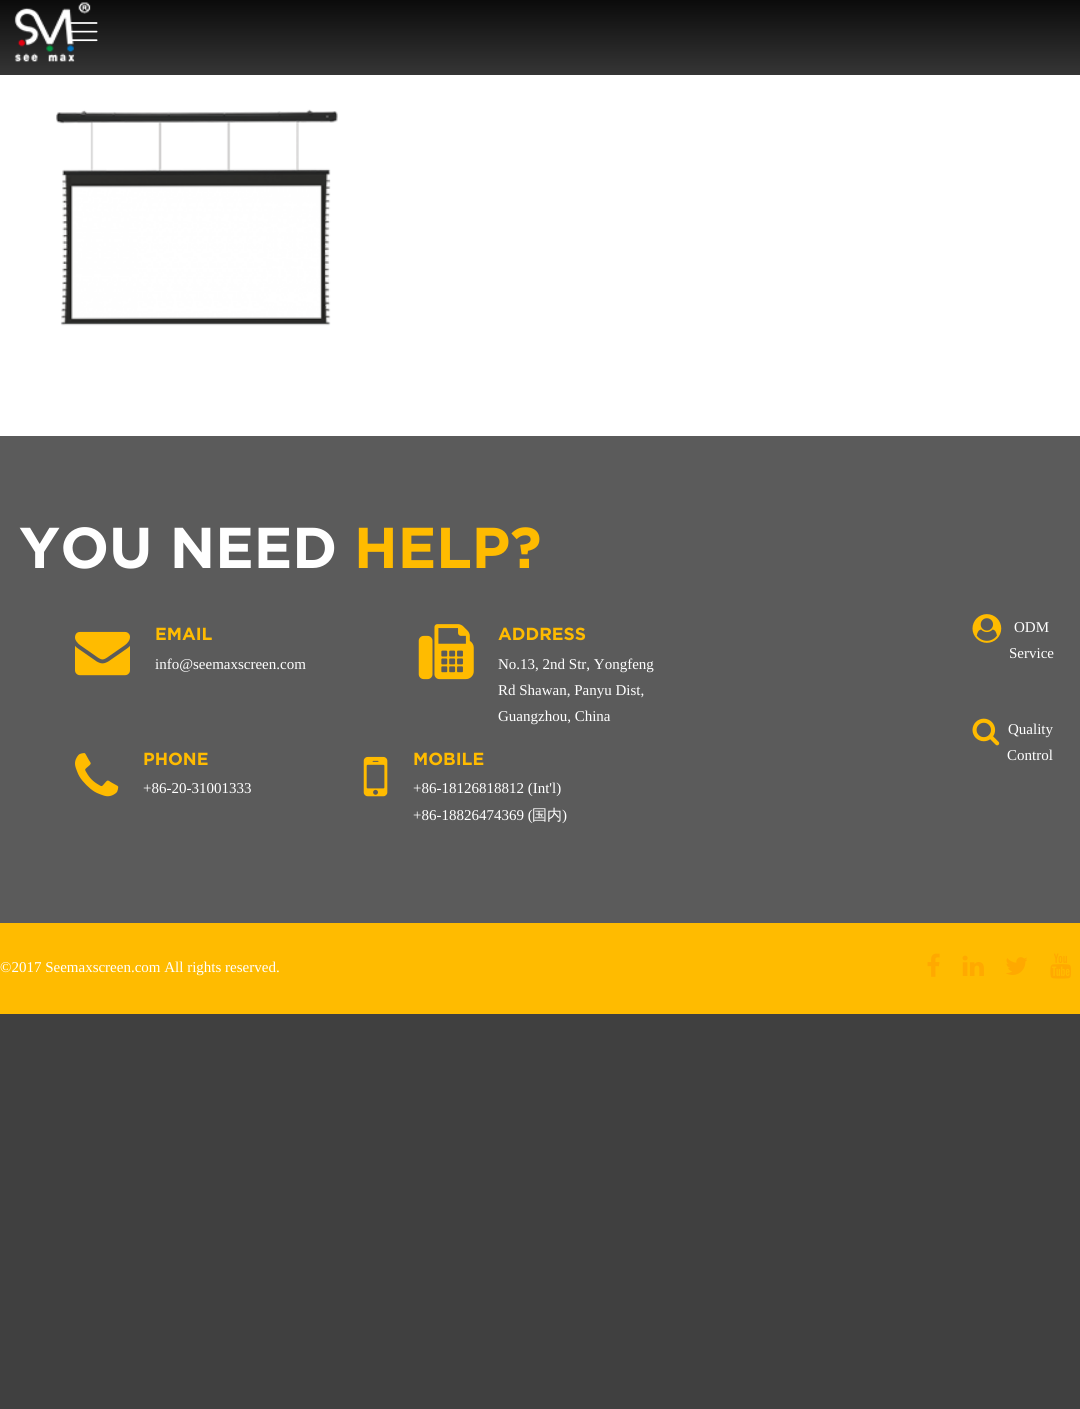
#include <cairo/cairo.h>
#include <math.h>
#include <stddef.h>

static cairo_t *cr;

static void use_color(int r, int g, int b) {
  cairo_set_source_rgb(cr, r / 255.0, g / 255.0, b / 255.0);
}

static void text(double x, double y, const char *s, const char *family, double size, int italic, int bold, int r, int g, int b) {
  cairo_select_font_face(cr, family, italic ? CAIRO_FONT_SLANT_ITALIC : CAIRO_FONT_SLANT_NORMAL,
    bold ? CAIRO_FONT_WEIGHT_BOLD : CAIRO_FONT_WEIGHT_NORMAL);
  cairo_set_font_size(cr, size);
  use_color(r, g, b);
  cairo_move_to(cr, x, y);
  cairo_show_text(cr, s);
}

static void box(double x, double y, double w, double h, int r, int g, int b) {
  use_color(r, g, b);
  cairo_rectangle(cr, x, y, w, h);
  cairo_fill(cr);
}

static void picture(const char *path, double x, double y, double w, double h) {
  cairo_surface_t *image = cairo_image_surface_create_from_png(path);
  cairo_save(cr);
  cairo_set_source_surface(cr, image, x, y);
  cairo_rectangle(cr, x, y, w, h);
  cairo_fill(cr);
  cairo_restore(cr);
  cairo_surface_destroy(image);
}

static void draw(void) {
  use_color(64, 64, 64);
  cairo_paint(cr);
  picture("img_01.png", 0, 0, 1080, 75);
  picture("img_02.png", 14, 2, 77, 60);
  picture("img_03.png", 70, 22, 28, 20);
  box(0, 75, 1080, 361, 255, 255, 255);
  picture("img_04.png", 56, 109, 282, 217);
  box(0, 436, 1080, 487, 91, 91, 91);
  picture("img_05.png", 75, 631, 55, 45);
  picture("img_06.png", 418, 624, 56, 56);
  picture("img_07.png", 75, 753, 44, 44);
  picture("img_08.png", 363, 756, 25, 41);
  picture("img_09.png", 972, 614, 30, 29);
  picture("img_10.png", 972, 718, 28, 28);
  box(0, 923, 1080, 91, 255, 187, 0);
  picture("img_11.png", 927, 953, 13, 24);
  picture("img_12.png", 962, 955, 22, 21);
  picture("img_13.png", 1006, 957, 21, 18);
  picture("img_14.png", 1050, 953, 21, 26);
  text(19, 568, "YOU NEED", "Gotham", 57.5, 0, 1, 255, 255, 255);
  text(354, 568, "HELP?", "Gotham", 57.5, 0, 1, 255, 187, 0);
  text(155, 640, "EMAIL", "Gotham", 17.5, 0, 1, 255, 187, 0);
  text(155, 669, "info@seemaxscreen.com", "Liberation Serif", 15, 0, 0, 255, 255, 255);
  text(498, 640, "ADDRESS", "Gotham", 17.5, 0, 1, 255, 187, 0);
  text(498, 669, "No.13, 2nd Str, Yongfeng", "Liberation Serif", 15, 0, 0, 255, 255, 255);
  text(498, 695, "Rd Shawan, Panyu Dist,", "Liberation Serif", 15, 0, 0, 255, 255, 255);
  text(498, 721, "Guangzhou, China", "Liberation Serif", 15, 0, 0, 255, 255, 255);
  text(143, 765, "PHONE", "Gotham", 17.5, 0, 1, 255, 187, 0);
  text(143, 793, "+86-20-31001333", "Liberation Serif", 15, 0, 0, 255, 255, 255);
  text(413, 765, "MOBILE", "Gotham", 17.5, 0, 1, 255, 187, 0);
  text(413, 793, "+86-18126818812 (Int'l)", "Liberation Serif", 15, 0, 0, 255, 255, 255);
  text(413, 820, "+86-18826474369 (", "Liberation Serif", 15, 0, 0, 255, 255, 255);
  text(532, 820, "国内", "WenQuanYi Zen Hei Medium", 15, 0, 0, 255, 255, 255);
  text(562, 820, ")", "Liberation Serif", 15, 0, 0, 255, 255, 255);
  text(1014, 632, "ODM", "Liberation Serif", 15, 0, 0, 255, 255, 255);
  text(1009, 658, "Service", "Liberation Serif", 15, 0, 0, 255, 255, 255);
  text(1008, 734, "Quality", "Liberation Serif", 15, 0, 0, 255, 255, 255);
  text(1007, 760, "Control", "Liberation Serif", 15, 0, 0, 255, 255, 255);
  text(0, 972, "©2017 Seemaxscreen.com All rights reserved.", "Liberation Serif", 15, 0, 0, 255, 255, 255);
}

int main(void) {
  cairo_surface_t *surface = cairo_image_surface_create(CAIRO_FORMAT_RGB24, 1080, 1409);
  cr = cairo_create(surface);
  cairo_font_options_t *options = cairo_font_options_create();
  cairo_font_options_set_hint_metrics(options, CAIRO_HINT_METRICS_OFF);
  cairo_font_options_set_hint_style(options, CAIRO_HINT_STYLE_NONE);
  cairo_set_font_options(cr, options);
  cairo_set_miter_limit(cr, 4);
  draw();
  cairo_surface_write_to_png(surface, "out.png");
  cairo_font_options_destroy(options);
  cairo_destroy(cr);
  cairo_surface_destroy(surface);
  return 0;
}
